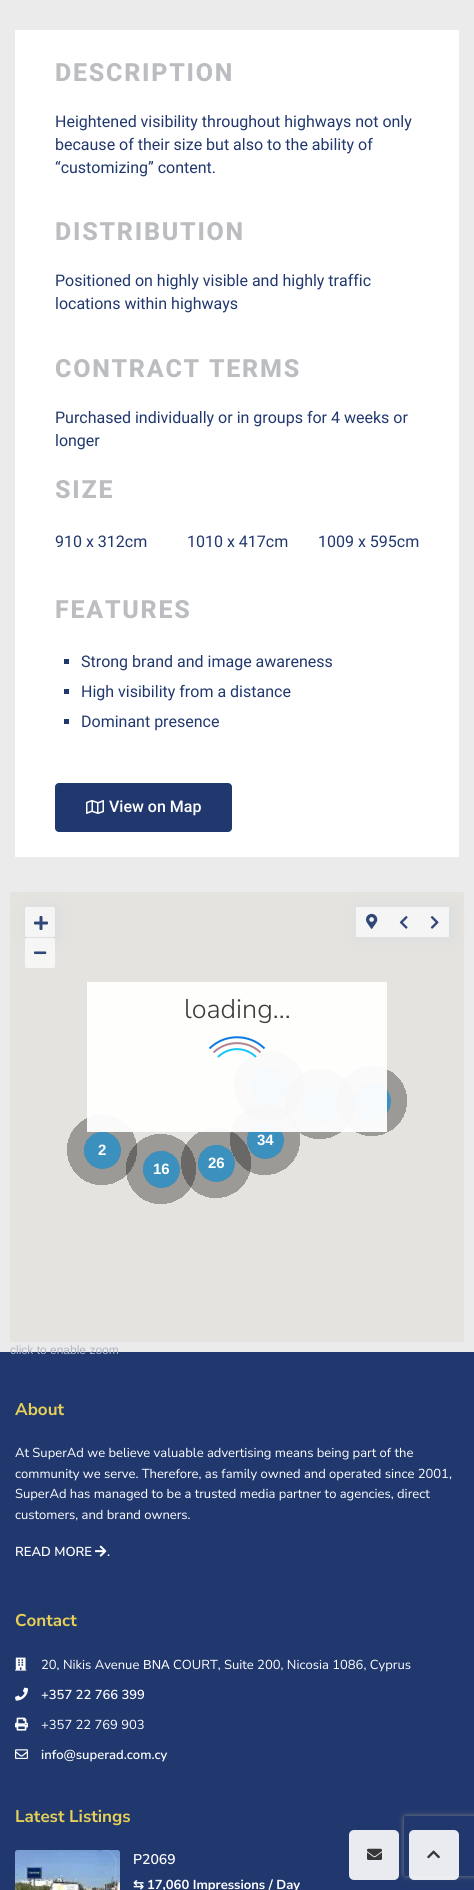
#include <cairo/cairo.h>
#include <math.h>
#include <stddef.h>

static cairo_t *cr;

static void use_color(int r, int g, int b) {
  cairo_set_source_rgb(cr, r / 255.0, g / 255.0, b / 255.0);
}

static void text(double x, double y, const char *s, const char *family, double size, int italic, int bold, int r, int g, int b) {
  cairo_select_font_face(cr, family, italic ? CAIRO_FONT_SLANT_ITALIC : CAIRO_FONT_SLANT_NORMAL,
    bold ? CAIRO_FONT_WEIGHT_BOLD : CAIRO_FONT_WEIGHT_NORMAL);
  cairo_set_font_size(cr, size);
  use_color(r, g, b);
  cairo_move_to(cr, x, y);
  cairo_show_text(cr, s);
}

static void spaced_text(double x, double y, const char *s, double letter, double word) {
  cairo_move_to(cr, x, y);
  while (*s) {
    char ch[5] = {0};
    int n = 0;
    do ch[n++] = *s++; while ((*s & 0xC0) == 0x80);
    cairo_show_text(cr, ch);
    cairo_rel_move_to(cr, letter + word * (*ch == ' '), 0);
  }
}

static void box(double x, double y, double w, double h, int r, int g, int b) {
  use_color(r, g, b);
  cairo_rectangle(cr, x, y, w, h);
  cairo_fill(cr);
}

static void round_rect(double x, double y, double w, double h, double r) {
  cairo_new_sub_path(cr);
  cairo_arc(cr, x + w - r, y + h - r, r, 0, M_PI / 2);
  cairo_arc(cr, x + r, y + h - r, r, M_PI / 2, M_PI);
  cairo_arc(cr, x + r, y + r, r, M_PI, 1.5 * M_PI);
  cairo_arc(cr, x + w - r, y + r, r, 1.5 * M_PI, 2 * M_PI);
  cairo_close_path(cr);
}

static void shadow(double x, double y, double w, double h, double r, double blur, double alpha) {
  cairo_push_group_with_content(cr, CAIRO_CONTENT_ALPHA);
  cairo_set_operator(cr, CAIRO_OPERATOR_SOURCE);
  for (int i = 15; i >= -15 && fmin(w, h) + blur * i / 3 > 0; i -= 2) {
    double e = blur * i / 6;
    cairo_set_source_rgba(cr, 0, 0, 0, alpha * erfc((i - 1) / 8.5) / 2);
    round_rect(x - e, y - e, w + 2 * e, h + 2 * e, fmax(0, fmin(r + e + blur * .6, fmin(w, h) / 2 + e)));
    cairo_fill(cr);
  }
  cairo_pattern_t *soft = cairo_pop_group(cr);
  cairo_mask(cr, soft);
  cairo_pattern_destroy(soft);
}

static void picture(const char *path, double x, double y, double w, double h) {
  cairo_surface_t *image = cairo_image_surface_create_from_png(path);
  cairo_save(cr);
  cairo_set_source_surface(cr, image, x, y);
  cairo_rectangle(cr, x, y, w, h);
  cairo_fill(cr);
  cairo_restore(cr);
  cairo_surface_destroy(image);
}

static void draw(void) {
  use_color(33, 56, 110);
  cairo_paint(cr);
  box(0, 0, 474, 1352, 235, 235, 235);
  box(15, 30, 444, 827, 255, 255, 255);
  box(64, 659, 5, 5, 33, 56, 110);
  box(64, 689, 5, 5, 33, 56, 110);
  box(64, 719, 5, 5, 33, 56, 110);
  round_rect(55.5, 783.5, 176, 48, 3.5);
  cairo_fill_preserve(cr);
  cairo_set_line_width(cr, 1);
  cairo_stroke(cr);
  picture("img_01.png", 86, 800, 18, 14);
  box(10, 892, 454, 450, 229, 227, 223);
  use_color(0, 110, 225);
  shadow(28, 908, 30, 30, 2, 10, 0.07);
  use_color(246, 245, 245);
  round_rect(25, 907, 30, 30, 2);
  cairo_fill(cr);
  picture("img_02.png", 34, 916, 14, 14);
  use_color(0, 110, 225);
  shadow(359, 908, 93, 30, 0, 10, 0.07);
  box(356, 907, 93, 30, 246, 245, 245);
  picture("img_03.png", 366, 913, 12, 16);
  picture("img_04.png", 399, 916, 9, 13);
  picture("img_05.png", 430, 916, 9, 13);
  cairo_set_source_rgba(cr, 0.969, 0.969, 0.969, 0.92);
  round_rect(25, 938, 30, 30, 2);
  cairo_fill(cr);
  picture("img_06.png", 34, 951, 13, 4);
  picture("img_07.png", 234, 1051, 70, 70);
  picture("img_07.png", 337, 1066, 70, 70);
  picture("img_07.png", 126, 1134, 70, 70);
  picture("img_11.png", 181, 1128, 70, 70);
  picture("img_09.png", 230, 1105, 70, 70);
  picture("img_08.png", 285, 1069, 70, 70);
  picture("img_10.png", 67, 1115, 70, 70);
  cairo_set_source_rgba(cr, 1, 1, 1, 0.95);
  cairo_rectangle(cr, 87, 982, 300, 150);
  cairo_fill(cr);
  cairo_new_path(cr);
  cairo_move_to(cr, 209.5, 1048.5);
  cairo_curve_to(cr, 224.5, 1033.5, 249.5, 1033.5, 264.5, 1048.5);
  use_color(11, 121, 225);
  cairo_set_line_width(cr, 2);
  cairo_stroke(cr);
  cairo_new_path(cr);
  cairo_move_to(cr, 213.5, 1052.5);
  cairo_curve_to(cr, 226.5, 1040, 247.5, 1040, 260.5, 1052.5);
  cairo_set_source_rgba(cr, 0.69, 0.49, 0.549, 0.95);
  cairo_stroke(cr);
  cairo_new_path(cr);
  cairo_move_to(cr, 218, 1057);
  cairo_curve_to(cr, 228.5, 1046.5, 245.5, 1046.5, 256, 1057);
  cairo_set_source_rgba(cr, 0.051, 0.765, 0.973, 0.95);
  cairo_stroke(cr);
  picture("img_12.png", 95, 1545, 12, 12);
  picture("img_13.png", 15, 1657, 12, 14);
  picture("img_14.png", 15, 1687, 13, 14);
  picture("img_15.png", 15, 1717, 13, 14);
  picture("img_16.png", 15, 1749, 13, 10);
  picture("img_17.png", 15, 1850, 105, 40);
  cairo_save(cr);
  cairo_set_fill_rule(cr, CAIRO_FILL_RULE_EVEN_ODD);
  cairo_new_path(cr);
  cairo_move_to(cr, 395, 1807);
  cairo_line_to(cr, 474, 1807);
  cairo_line_to(cr, 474, 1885);
  cairo_line_to(cr, 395, 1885);
  cairo_close_path(cr);
  cairo_move_to(cr, 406, 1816);
  cairo_line_to(cr, 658, 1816);
  cairo_curve_to(cr, 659, 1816, 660, 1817, 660, 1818);
  cairo_line_to(cr, 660, 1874);
  cairo_curve_to(cr, 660, 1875, 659, 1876, 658, 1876);
  cairo_line_to(cr, 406, 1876);
  cairo_curve_to(cr, 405, 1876, 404, 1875, 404, 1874);
  cairo_line_to(cr, 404, 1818);
  cairo_curve_to(cr, 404, 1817, 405, 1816, 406, 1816);
  cairo_close_path(cr);
  cairo_clip(cr);
  use_color(128, 128, 128);
  shadow(404, 1816, 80, 60, 2, 2.5, 1);
  cairo_restore(cr);
  use_color(233, 235, 241);
  round_rect(349, 1830, 50, 50, 5);
  cairo_fill(cr);
  picture("img_18.png", 367, 1848, 15, 12);
  cairo_set_source_rgba(cr, 1, 1, 1, 0.9);
  round_rect(409, 1830, 50, 50, 5);
  cairo_fill(cr);
  picture("img_19.png", 427, 1850, 13, 9);
  cairo_select_font_face(cr, "Roboto ExtraBold", CAIRO_FONT_SLANT_NORMAL, CAIRO_FONT_WEIGHT_NORMAL);
  cairo_set_font_size(cr, 25);
  use_color(187, 189, 192);
  spaced_text(55, 81, "DESCRIPTION", 1.75, 0);
  text(55, 127, "Heightened visibility throughout highways not only", "Roboto", 16, 0, 0, 33, 56, 110);
  text(55, 150, "because of their size but also to the ability of", "Roboto", 16, 0, 0, 33, 56, 110);
  text(55, 173, "“customizing” content.", "Roboto", 16, 0, 0, 33, 56, 110);
  cairo_select_font_face(cr, "Roboto ExtraBold", CAIRO_FONT_SLANT_NORMAL, CAIRO_FONT_WEIGHT_NORMAL);
  cairo_set_font_size(cr, 25);
  use_color(187, 189, 192);
  spaced_text(55, 240, "DISTRIBUTION", 1.75, 0);
  text(55, 286, "Positioned on highly visible and highly traffic", "Roboto", 16, 0, 0, 33, 56, 110);
  text(55, 309, "locations within highways", "Roboto", 16, 0, 0, 33, 56, 110);
  cairo_select_font_face(cr, "Roboto ExtraBold", CAIRO_FONT_SLANT_NORMAL, CAIRO_FONT_WEIGHT_NORMAL);
  cairo_set_font_size(cr, 25);
  use_color(187, 189, 192);
  spaced_text(55, 377, "CONTRACT TERMS", 1.75, 0);
  text(55, 423, "Purchased individually or in groups for 4 weeks or", "Roboto", 16, 0, 0, 33, 56, 110);
  text(55, 446, "longer", "Roboto", 16, 0, 0, 33, 56, 110);
  cairo_select_font_face(cr, "Roboto ExtraBold", CAIRO_FONT_SLANT_NORMAL, CAIRO_FONT_WEIGHT_NORMAL);
  cairo_set_font_size(cr, 25);
  use_color(187, 189, 192);
  spaced_text(55, 498, "SIZE", 1.75, 0);
  text(55, 547, "910 x 312cm", "Roboto", 16, 0, 0, 33, 56, 110);
  text(187, 547, "1010 x 417cm", "Roboto", 16, 0, 0, 33, 56, 110);
  text(318, 547, "1009 x 595cm", "Roboto", 16, 0, 0, 33, 56, 110);
  cairo_select_font_face(cr, "Roboto ExtraBold", CAIRO_FONT_SLANT_NORMAL, CAIRO_FONT_WEIGHT_NORMAL);
  cairo_set_font_size(cr, 25);
  use_color(187, 189, 192);
  spaced_text(55, 618, "FEATURES", 1.75, 0);
  text(81, 667, "Strong brand and image awareness", "Roboto", 16, 0, 0, 33, 56, 110);
  text(81, 697, "High visibility from a distance", "Roboto", 16, 0, 0, 33, 56, 110);
  text(81, 727, "Dominant presence", "Roboto", 16, 0, 0, 33, 56, 110);
  text(109, 812, "View on Map", "Roboto Medium", 16, 0, 0, 255, 255, 255);
  text(184, 1018, "loading...", "Nunito Sans Light", 27, 0, 0, 60, 60, 60);
  text(257, 1145, "34", "Liberation Sans", 15, 0, 1, 255, 255, 255);
  text(98, 1155, "2", "Liberation Sans", 15, 0, 1, 255, 255, 255);
  text(153, 1174, "16", "Liberation Sans", 15, 0, 1, 255, 255, 255);
  text(208, 1168, "26", "Liberation Sans", 15, 0, 1, 255, 255, 255);
  text(10, 1354, "click to enable zoom", "Liberation Sans", 12, 0, 0, 174, 181, 197);
  text(15, 1415, "About", "Nunito Sans", 17, 0, 1, 230, 208, 87);
  text(15, 1457, "At SuperAd we believe valuable advertising means being part of the", "Nunito Sans", 13, 0, 0, 255, 255, 255);
  text(15, 1478, "community we serve. Therefore, as family owned and operated since 2001,", "Nunito Sans", 13, 0, 0, 255, 255, 255);
  text(15, 1498, "SuperAd has managed to be a trusted media partner to agencies, direct", "Nunito Sans", 13, 0, 0, 255, 255, 255);
  text(15, 1519, "customers, and brand owners.", "Nunito Sans", 13, 0, 0, 255, 255, 255);
  text(15, 1556, "READ MORE", "Nunito Sans SemiBold", 13, 0, 0, 255, 255, 255);
  text(107, 1556, ".", "Nunito Sans SemiBold", 13, 0, 0, 255, 255, 255);
  text(15, 1626, "Contact", "Nunito Sans", 17, 0, 1, 230, 208, 87);
  text(41, 1669, "20, Nikis Avenue", "Nunito Sans", 13, 0, 0, 255, 255, 255);
  text(143, 1669, "ΒΝΑ", "Liberation Sans", 13, 0, 0, 255, 255, 255);
  text(173, 1669, "COURT, Suite 200, Nicosia 1086, Cyprus", "Nunito Sans", 13, 0, 0, 255, 255, 255);
  text(41, 1699, "+357 22 766 399", "Nunito Sans SemiBold", 13, 0, 0, 255, 255, 255);
  text(41, 1729, "+357 22 769 903", "Nunito Sans", 13, 0, 0, 255, 255, 255);
  text(41, 1759, "info@superad.com.cy", "Nunito Sans SemiBold", 13, 0, 0, 255, 255, 255);
  text(15, 1822, "Latest Listings", "Nunito Sans", 17, 0, 1, 230, 208, 87);
  text(133, 1864, "P2069", "Nunito Sans SemiBold", 14, 0, 0, 255, 255, 255);
  text(133, 1889, "⇆", "DejaVu Sans", 13, 0, 1, 255, 255, 255);
  text(147, 1889, "17,060 Impressions / Day", "Nunito Sans", 13, 0, 1, 255, 255, 255);
}

int main(void) {
  cairo_surface_t *surface = cairo_image_surface_create(CAIRO_FORMAT_RGB24, 474, 1890);
  cr = cairo_create(surface);
  cairo_font_options_t *options = cairo_font_options_create();
  cairo_font_options_set_hint_metrics(options, CAIRO_HINT_METRICS_OFF);
  cairo_font_options_set_hint_style(options, CAIRO_HINT_STYLE_NONE);
  cairo_set_font_options(cr, options);
  cairo_set_miter_limit(cr, 4);
  draw();
  cairo_surface_write_to_png(surface, "out.png");
  cairo_font_options_destroy(options);
  cairo_destroy(cr);
  cairo_surface_destroy(surface);
  return 0;
}
